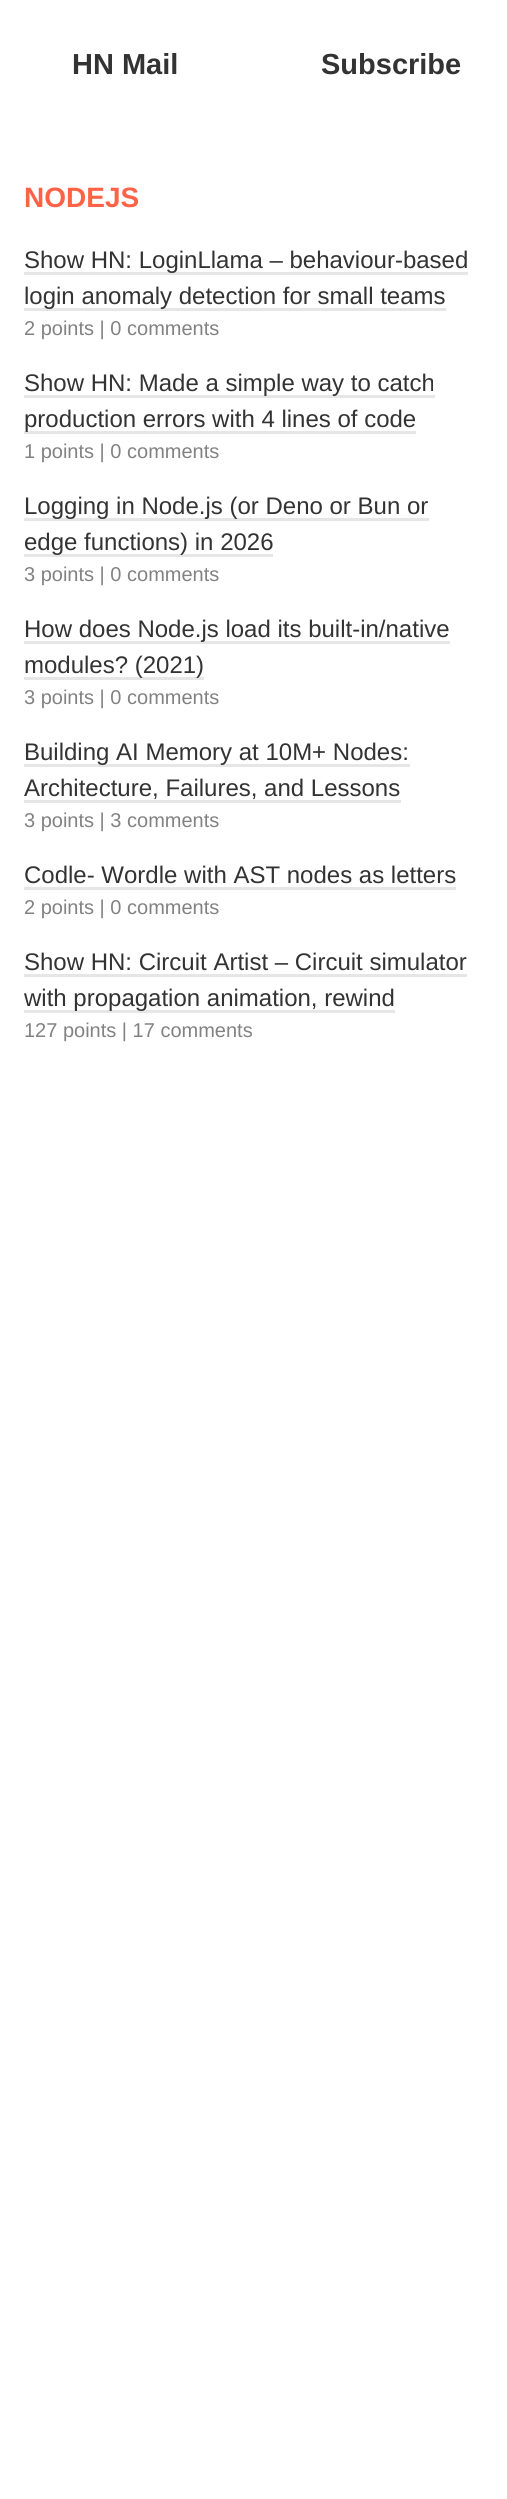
#include <cairo/cairo.h>
#include <math.h>
#include <stddef.h>

static cairo_t *cr;

static void use_color(int r, int g, int b) {
  cairo_set_source_rgb(cr, r / 255.0, g / 255.0, b / 255.0);
}

static void text(double x, double y, const char *s, const char *family, double size, int italic, int bold, int r, int g, int b) {
  cairo_select_font_face(cr, family, italic ? CAIRO_FONT_SLANT_ITALIC : CAIRO_FONT_SLANT_NORMAL,
    bold ? CAIRO_FONT_WEIGHT_BOLD : CAIRO_FONT_WEIGHT_NORMAL);
  cairo_set_font_size(cr, size);
  use_color(r, g, b);
  cairo_move_to(cr, x, y);
  cairo_show_text(cr, s);
}

static void box(double x, double y, double w, double h, int r, int g, int b) {
  use_color(r, g, b);
  cairo_rectangle(cr, x, y, w, h);
  cairo_fill(cr);
}

static void draw(void) {
  use_color(255, 255, 255);
  cairo_paint(cr);
  box(24, 272, 444, 3, 230, 230, 230);
  box(24, 308, 422, 3, 230, 230, 230);
  box(24, 395, 411, 3, 230, 230, 230);
  box(24, 431, 392, 3, 230, 230, 230);
  box(24, 518, 405, 3, 230, 230, 230);
  box(24, 554, 249, 3, 230, 230, 230);
  box(24, 641, 426, 3, 230, 230, 230);
  box(24, 677, 180, 3, 230, 230, 230);
  box(24, 764, 386, 3, 230, 230, 230);
  box(24, 800, 377, 3, 230, 230, 230);
  box(24, 887, 432, 3, 230, 230, 230);
  box(24, 974, 443, 3, 230, 230, 230);
  box(24, 1010, 371, 3, 230, 230, 230);
  text(72, 74, "HN Mail", "Liberation Sans", 29, 0, 1, 51, 51, 51);
  text(321, 74, "Subscribe", "Liberation Sans", 29, 0, 1, 51, 51, 51);
  text(24, 207, "NODEJS", "Liberation Sans", 28, 0, 1, 255, 99, 71);
  text(24, 268, "Show HN: LoginLlama – behaviour-based", "Liberation Sans", 24, 0, 0, 51, 51, 51);
  text(24, 304, "login anomaly detection for small teams", "Liberation Sans", 24, 0, 0, 51, 51, 51);
  text(24, 335, "2 points | 0 comments", "Liberation Sans", 20, 0, 0, 130, 130, 130);
  text(24, 391, "Show HN: Made a simple way to catch", "Liberation Sans", 24, 0, 0, 51, 51, 51);
  text(24, 427, "production errors with 4 lines of code", "Liberation Sans", 24, 0, 0, 51, 51, 51);
  text(24, 458, "1 points | 0 comments", "Liberation Sans", 20, 0, 0, 130, 130, 130);
  text(24, 514, "Logging in Node.js (or Deno or Bun or", "Liberation Sans", 24, 0, 0, 51, 51, 51);
  text(24, 550, "edge functions) in 2026", "Liberation Sans", 24, 0, 0, 51, 51, 51);
  text(24, 581, "3 points | 0 comments", "Liberation Sans", 20, 0, 0, 130, 130, 130);
  text(24, 637, "How does Node.js load its built-in/native", "Liberation Sans", 24, 0, 0, 51, 51, 51);
  text(24, 673, "modules? (2021)", "Liberation Sans", 24, 0, 0, 51, 51, 51);
  text(24, 704, "3 points | 0 comments", "Liberation Sans", 20, 0, 0, 130, 130, 130);
  text(24, 760, "Building AI Memory at 10M+ Nodes:", "Liberation Sans", 24, 0, 0, 51, 51, 51);
  text(24, 796, "Architecture, Failures, and Lessons", "Liberation Sans", 24, 0, 0, 51, 51, 51);
  text(24, 827, "3 points | 3 comments", "Liberation Sans", 20, 0, 0, 130, 130, 130);
  text(24, 883, "Codle- Wordle with AST nodes as letters", "Liberation Sans", 24, 0, 0, 51, 51, 51);
  text(24, 914, "2 points | 0 comments", "Liberation Sans", 20, 0, 0, 130, 130, 130);
  text(24, 970, "Show HN: Circuit Artist – Circuit simulator", "Liberation Sans", 24, 0, 0, 51, 51, 51);
  text(24, 1006, "with propagation animation, rewind", "Liberation Sans", 24, 0, 0, 51, 51, 51);
  text(24, 1037, "127 points | 17 comments", "Liberation Sans", 20, 0, 0, 130, 130, 130);
}

int main(void) {
  cairo_surface_t *surface = cairo_image_surface_create(CAIRO_FORMAT_RGB24, 507, 2499);
  cr = cairo_create(surface);
  cairo_font_options_t *options = cairo_font_options_create();
  cairo_font_options_set_hint_metrics(options, CAIRO_HINT_METRICS_OFF);
  cairo_font_options_set_hint_style(options, CAIRO_HINT_STYLE_NONE);
  cairo_set_font_options(cr, options);
  cairo_set_miter_limit(cr, 4);
  draw();
  cairo_surface_write_to_png(surface, "out.png");
  cairo_font_options_destroy(options);
  cairo_destroy(cr);
  cairo_surface_destroy(surface);
  return 0;
}
